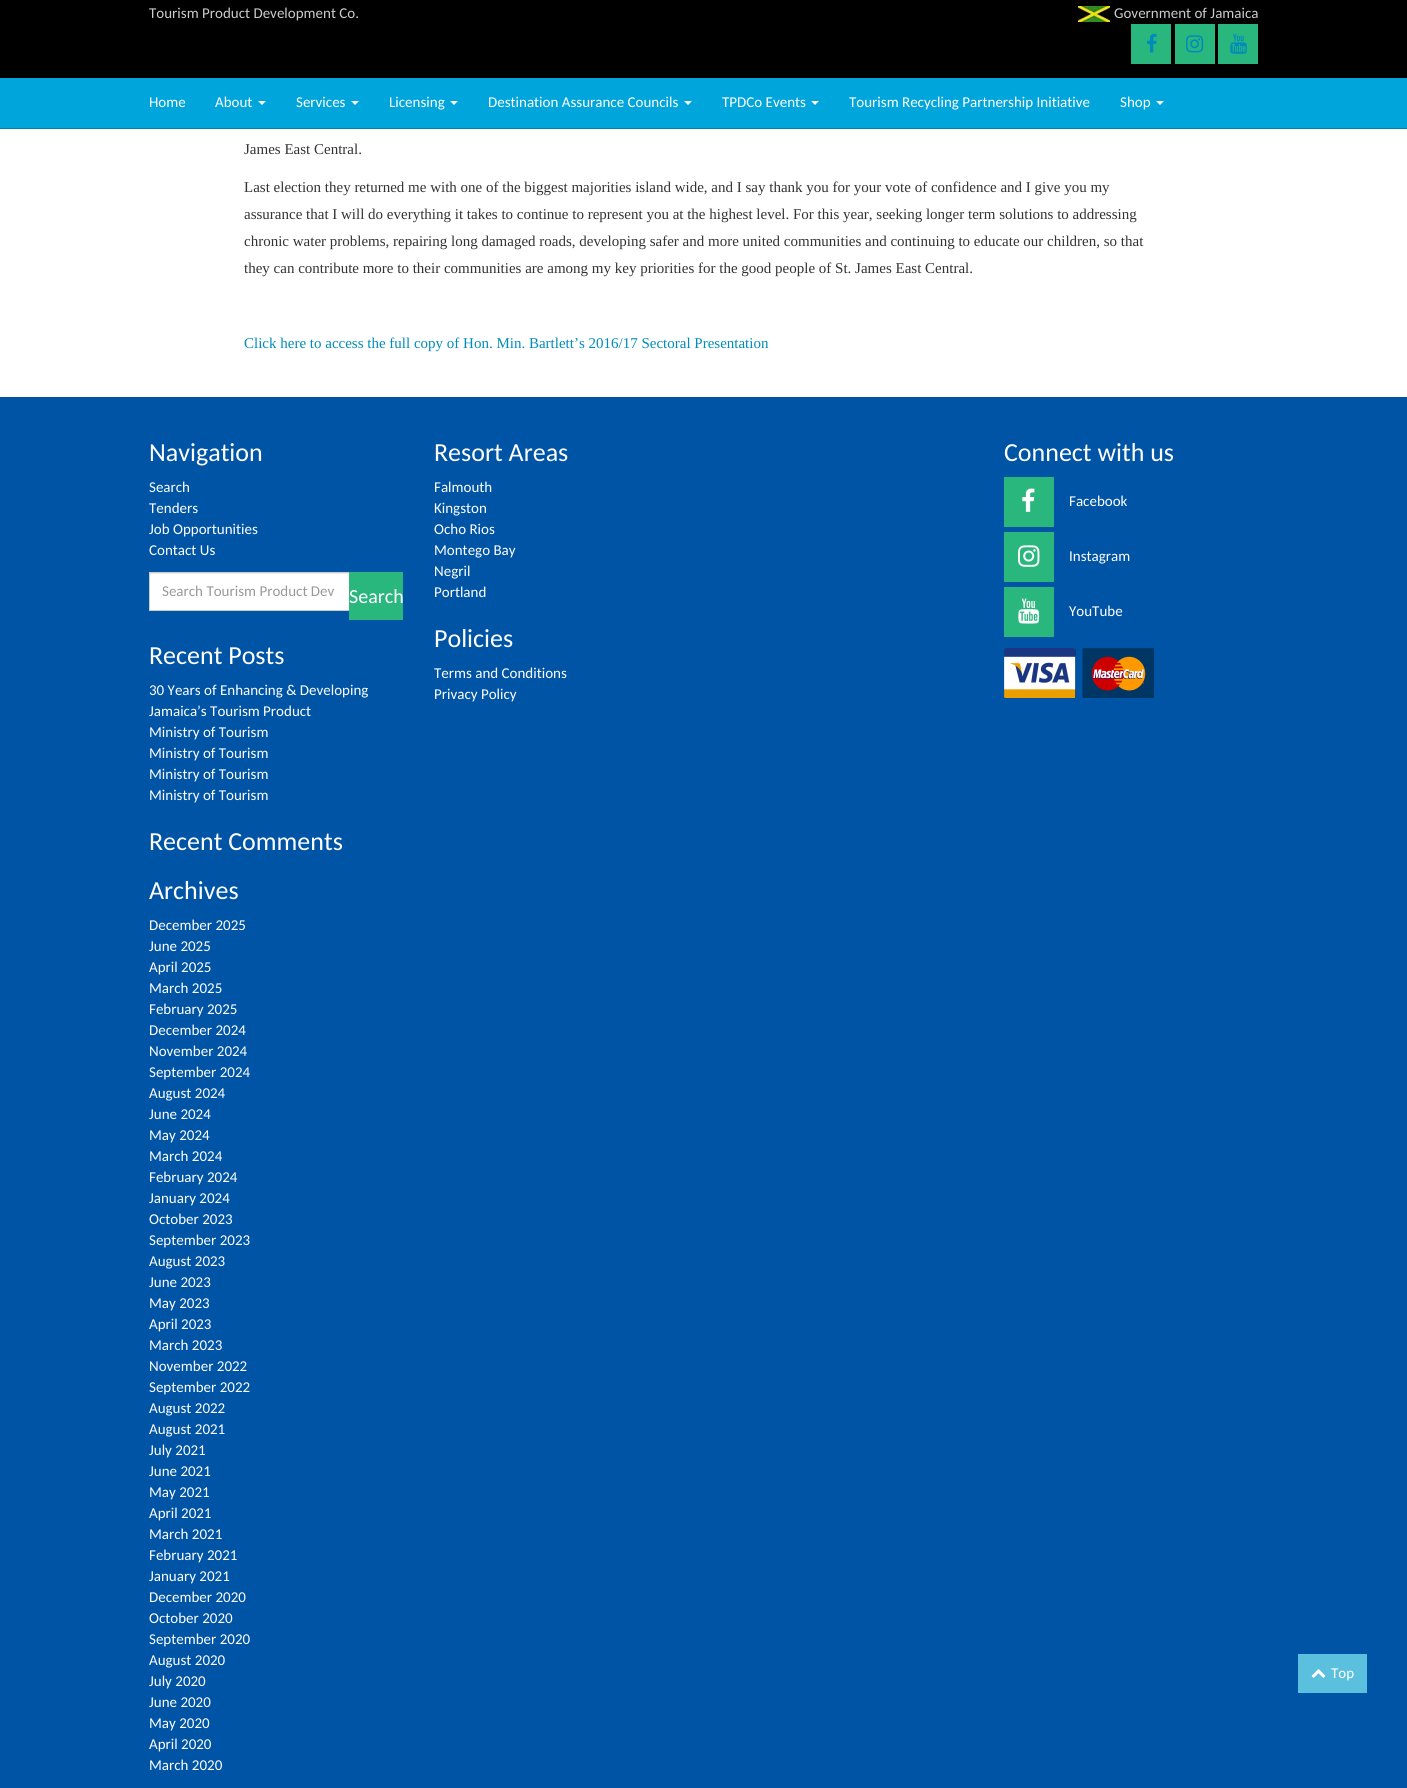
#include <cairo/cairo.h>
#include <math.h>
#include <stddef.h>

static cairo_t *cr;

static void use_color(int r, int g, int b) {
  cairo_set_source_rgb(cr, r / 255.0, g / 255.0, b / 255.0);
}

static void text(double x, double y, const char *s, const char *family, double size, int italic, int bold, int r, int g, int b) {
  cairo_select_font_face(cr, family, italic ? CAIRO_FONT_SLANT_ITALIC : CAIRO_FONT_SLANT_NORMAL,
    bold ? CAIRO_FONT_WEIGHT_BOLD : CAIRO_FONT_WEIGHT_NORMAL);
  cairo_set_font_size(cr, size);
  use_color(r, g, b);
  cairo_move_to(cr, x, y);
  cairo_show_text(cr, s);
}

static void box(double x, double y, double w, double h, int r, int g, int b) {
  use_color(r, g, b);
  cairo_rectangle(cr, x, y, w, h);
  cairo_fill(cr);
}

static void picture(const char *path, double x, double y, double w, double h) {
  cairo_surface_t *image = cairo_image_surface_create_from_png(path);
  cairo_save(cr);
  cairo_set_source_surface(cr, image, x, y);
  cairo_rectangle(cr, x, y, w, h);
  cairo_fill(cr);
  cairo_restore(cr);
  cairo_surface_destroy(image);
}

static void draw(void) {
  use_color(255, 255, 255);
  cairo_paint(cr);
  box(0, 78, 1407, 50, 0, 165, 219);
  box(0, 128, 1407, 1, 0, 127, 168);
  box(0, 0, 1407, 78, 0, 0, 0);
  picture("img_01.png", 1078, 6, 32, 16);
  box(1131, 24, 40, 40, 42, 183, 126);
  picture("img_02.png", 1147, 33, 10, 20);
  box(1175, 24, 40, 40, 42, 183, 126);
  picture("img_03.png", 1186, 35, 18, 18);
  box(1218, 24, 40, 40, 42, 183, 126);
  picture("img_04.png", 1230, 33, 17, 21);
  use_color(255, 255, 255);
  cairo_new_path(cr);
  cairo_move_to(cr, 258, 101);
  cairo_line_to(cr, 266, 101);
  cairo_line_to(cr, 262, 105);
  cairo_close_path(cr);
  cairo_fill(cr);
  cairo_new_path(cr);
  cairo_move_to(cr, 351, 101);
  cairo_line_to(cr, 359, 101);
  cairo_line_to(cr, 355, 105);
  cairo_close_path(cr);
  cairo_fill(cr);
  cairo_new_path(cr);
  cairo_move_to(cr, 450, 101);
  cairo_line_to(cr, 458, 101);
  cairo_line_to(cr, 454, 105);
  cairo_close_path(cr);
  cairo_fill(cr);
  cairo_new_path(cr);
  cairo_move_to(cr, 684, 101);
  cairo_line_to(cr, 692, 101);
  cairo_line_to(cr, 688, 105);
  cairo_close_path(cr);
  cairo_fill(cr);
  cairo_new_path(cr);
  cairo_move_to(cr, 811, 101);
  cairo_line_to(cr, 819, 101);
  cairo_line_to(cr, 815, 105);
  cairo_close_path(cr);
  cairo_fill(cr);
  cairo_new_path(cr);
  cairo_move_to(cr, 1156, 101);
  cairo_line_to(cr, 1164, 101);
  cairo_line_to(cr, 1160, 105);
  cairo_close_path(cr);
  cairo_fill(cr);
  box(0, 397, 1407, 1391, 0, 84, 166);
  box(1298, 1654, 69, 39, 91, 192, 222);
  picture("img_05.png", 1311, 1669, 15, 9);
  box(150, 574, 199, 36, 255, 255, 255);
  box(150, 573, 199, 1, 236, 236, 236);
  cairo_rectangle(cr, 149.5, 572.5, 200, 38);
  use_color(204, 204, 204);
  cairo_set_line_width(cr, 1);
  cairo_stroke(cr);
  box(349, 572, 54, 48, 42, 183, 126);
  box(1004, 477, 50, 50, 42, 183, 126);
  picture("img_06.png", 1022, 488, 13, 24);
  box(1004, 532, 50, 50, 42, 183, 126);
  picture("img_07.png", 1018, 545, 22, 22);
  box(1004, 587, 50, 50, 42, 183, 126);
  picture("img_08.png", 1018, 598, 22, 26);
  picture("img_09.png", 1004, 648, 150, 50);
  text(149, 18, "Tourism Product Development Co.", "Carlito", 15, 0, 0, 204, 204, 204);
  text(1114, 18, "Government of Jamaica", "Carlito", 15, 0, 0, 204, 204, 204);
  text(149, 107, "Home", "Carlito", 15, 0, 0, 255, 255, 255);
  text(215, 107, "About", "Carlito", 15, 0, 0, 255, 255, 255);
  text(296, 107, "Services", "Carlito", 15, 0, 0, 255, 255, 255);
  text(389, 107, "Licensing", "Carlito", 15, 0, 0, 255, 255, 255);
  text(488, 107, "Destination Assurance Councils", "Carlito", 15, 0, 0, 255, 255, 255);
  text(722, 107, "TPDCo Events", "Carlito", 15, 0, 0, 255, 255, 255);
  text(849, 107, "Tourism Recycling Partnership Initiative", "Carlito", 15, 0, 0, 255, 255, 255);
  text(1120, 107, "Shop", "Carlito", 15, 0, 0, 255, 255, 255);
  text(244, 154, "James East Central.", "Liberation Serif", 15, 0, 0, 51, 51, 51);
  text(244, 192, "Last election they returned me with one of the biggest majorities island wide, and I say thank you for your vote of confidence and I give you my", "Liberation Serif", 15, 0, 0, 51, 51, 51);
  text(244, 219, "assurance that I will do everything it takes to continue to represent you at the highest level. For this year, seeking longer term solutions to addressing", "Liberation Serif", 15, 0, 0, 51, 51, 51);
  text(244, 246, "chronic water problems, repairing long damaged roads, developing safer and more united communities and continuing to educate our children, so that", "Liberation Serif", 15, 0, 0, 51, 51, 51);
  text(244, 273, "they can contribute more to their communities are among my key priorities for the good people of St. James East Central.", "Liberation Serif", 15, 0, 0, 51, 51, 51);
  text(244, 348, "Click here to access the full copy of Hon. Min. Bartlett’s 2016/17 Sectoral Presentation", "Liberation Serif", 15, 0, 0, 0, 140, 186);
  text(1331, 1678, "Top", "Carlito", 15, 0, 0, 255, 255, 255);
  text(149, 461, "Navigation", "Carlito", 26, 0, 0, 255, 255, 255);
  text(149, 492, "Search", "Carlito", 15, 0, 0, 255, 255, 255);
  text(149, 513, "Tenders", "Carlito", 15, 0, 0, 255, 255, 255);
  text(149, 534, "Job Opportunities", "Carlito", 15, 0, 0, 255, 255, 255);
  text(149, 555, "Contact Us", "Carlito", 15, 0, 0, 255, 255, 255);
  text(162, 596, "Search Tourism Product Dev", "Carlito", 15, 0, 0, 153, 153, 153);
  text(349, 603, "Search", "Carlito", 20, 0, 0, 255, 255, 255);
  text(149, 664, "Recent Posts", "Carlito", 26, 0, 0, 255, 255, 255);
  text(149, 695, "30 Years of Enhancing & Developing", "Carlito", 15, 0, 0, 255, 255, 255);
  text(149, 716, "Jamaica’s Tourism Product", "Carlito", 15, 0, 0, 255, 255, 255);
  text(149, 737, "Ministry of Tourism", "Carlito", 15, 0, 0, 255, 255, 255);
  text(149, 758, "Ministry of Tourism", "Carlito", 15, 0, 0, 255, 255, 255);
  text(149, 779, "Ministry of Tourism", "Carlito", 15, 0, 0, 255, 255, 255);
  text(149, 800, "Ministry of Tourism", "Carlito", 15, 0, 0, 255, 255, 255);
  text(149, 850, "Recent Comments", "Carlito", 26, 0, 0, 255, 255, 255);
  text(149, 899, "Archives", "Carlito", 26, 0, 0, 255, 255, 255);
  text(149, 930, "December 2025", "Carlito", 15, 0, 0, 255, 255, 255);
  text(149, 951, "June 2025", "Carlito", 15, 0, 0, 255, 255, 255);
  text(149, 972, "April 2025", "Carlito", 15, 0, 0, 255, 255, 255);
  text(149, 993, "March 2025", "Carlito", 15, 0, 0, 255, 255, 255);
  text(149, 1014, "February 2025", "Carlito", 15, 0, 0, 255, 255, 255);
  text(149, 1035, "December 2024", "Carlito", 15, 0, 0, 255, 255, 255);
  text(149, 1056, "November 2024", "Carlito", 15, 0, 0, 255, 255, 255);
  text(149, 1077, "September 2024", "Carlito", 15, 0, 0, 255, 255, 255);
  text(149, 1098, "August 2024", "Carlito", 15, 0, 0, 255, 255, 255);
  text(149, 1119, "June 2024", "Carlito", 15, 0, 0, 255, 255, 255);
  text(149, 1140, "May 2024", "Carlito", 15, 0, 0, 255, 255, 255);
  text(149, 1161, "March 2024", "Carlito", 15, 0, 0, 255, 255, 255);
  text(149, 1182, "February 2024", "Carlito", 15, 0, 0, 255, 255, 255);
  text(149, 1203, "January 2024", "Carlito", 15, 0, 0, 255, 255, 255);
  text(149, 1224, "October 2023", "Carlito", 15, 0, 0, 255, 255, 255);
  text(149, 1245, "September 2023", "Carlito", 15, 0, 0, 255, 255, 255);
  text(149, 1266, "August 2023", "Carlito", 15, 0, 0, 255, 255, 255);
  text(149, 1287, "June 2023", "Carlito", 15, 0, 0, 255, 255, 255);
  text(149, 1308, "May 2023", "Carlito", 15, 0, 0, 255, 255, 255);
  text(149, 1329, "April 2023", "Carlito", 15, 0, 0, 255, 255, 255);
  text(149, 1350, "March 2023", "Carlito", 15, 0, 0, 255, 255, 255);
  text(149, 1371, "November 2022", "Carlito", 15, 0, 0, 255, 255, 255);
  text(149, 1392, "September 2022", "Carlito", 15, 0, 0, 255, 255, 255);
  text(149, 1413, "August 2022", "Carlito", 15, 0, 0, 255, 255, 255);
  text(149, 1434, "August 2021", "Carlito", 15, 0, 0, 255, 255, 255);
  text(149, 1455, "July 2021", "Carlito", 15, 0, 0, 255, 255, 255);
  text(149, 1476, "June 2021", "Carlito", 15, 0, 0, 255, 255, 255);
  text(149, 1497, "May 2021", "Carlito", 15, 0, 0, 255, 255, 255);
  text(149, 1518, "April 2021", "Carlito", 15, 0, 0, 255, 255, 255);
  text(149, 1539, "March 2021", "Carlito", 15, 0, 0, 255, 255, 255);
  text(149, 1560, "February 2021", "Carlito", 15, 0, 0, 255, 255, 255);
  text(149, 1581, "January 2021", "Carlito", 15, 0, 0, 255, 255, 255);
  text(149, 1602, "December 2020", "Carlito", 15, 0, 0, 255, 255, 255);
  text(149, 1623, "October 2020", "Carlito", 15, 0, 0, 255, 255, 255);
  text(149, 1644, "September 2020", "Carlito", 15, 0, 0, 255, 255, 255);
  text(149, 1665, "August 2020", "Carlito", 15, 0, 0, 255, 255, 255);
  text(149, 1686, "July 2020", "Carlito", 15, 0, 0, 255, 255, 255);
  text(149, 1707, "June 2020", "Carlito", 15, 0, 0, 255, 255, 255);
  text(149, 1728, "May 2020", "Carlito", 15, 0, 0, 255, 255, 255);
  text(149, 1749, "April 2020", "Carlito", 15, 0, 0, 255, 255, 255);
  text(149, 1770, "March 2020", "Carlito", 15, 0, 0, 255, 255, 255);
  text(434, 461, "Resort Areas", "Carlito", 26, 0, 0, 255, 255, 255);
  text(434, 492, "Falmouth", "Carlito", 15, 0, 0, 255, 255, 255);
  text(434, 513, "Kingston", "Carlito", 15, 0, 0, 255, 255, 255);
  text(434, 534, "Ocho Rios", "Carlito", 15, 0, 0, 255, 255, 255);
  text(434, 555, "Montego Bay", "Carlito", 15, 0, 0, 255, 255, 255);
  text(434, 576, "Negril", "Carlito", 15, 0, 0, 255, 255, 255);
  text(434, 597, "Portland", "Carlito", 15, 0, 0, 255, 255, 255);
  text(434, 647, "Policies", "Carlito", 26, 0, 0, 255, 255, 255);
  text(434, 678, "Terms and Conditions", "Carlito", 15, 0, 0, 255, 255, 255);
  text(434, 699, "Privacy Policy", "Carlito", 15, 0, 0, 255, 255, 255);
  text(1004, 461, "Connect with us", "Carlito", 26, 0, 0, 255, 255, 255);
  text(1069, 506, "Facebook", "Carlito", 15, 0, 0, 255, 255, 255);
  text(1069, 561, "Instagram", "Carlito", 15, 0, 0, 255, 255, 255);
  text(1069, 616, "YouTube", "Carlito", 15, 0, 0, 255, 255, 255);
}

int main(void) {
  cairo_surface_t *surface = cairo_image_surface_create(CAIRO_FORMAT_RGB24, 1407, 1788);
  cr = cairo_create(surface);
  cairo_font_options_t *options = cairo_font_options_create();
  cairo_font_options_set_hint_metrics(options, CAIRO_HINT_METRICS_OFF);
  cairo_font_options_set_hint_style(options, CAIRO_HINT_STYLE_NONE);
  cairo_set_font_options(cr, options);
  cairo_set_miter_limit(cr, 4);
  draw();
  cairo_surface_write_to_png(surface, "out.png");
  cairo_font_options_destroy(options);
  cairo_destroy(cr);
  cairo_surface_destroy(surface);
  return 0;
}
